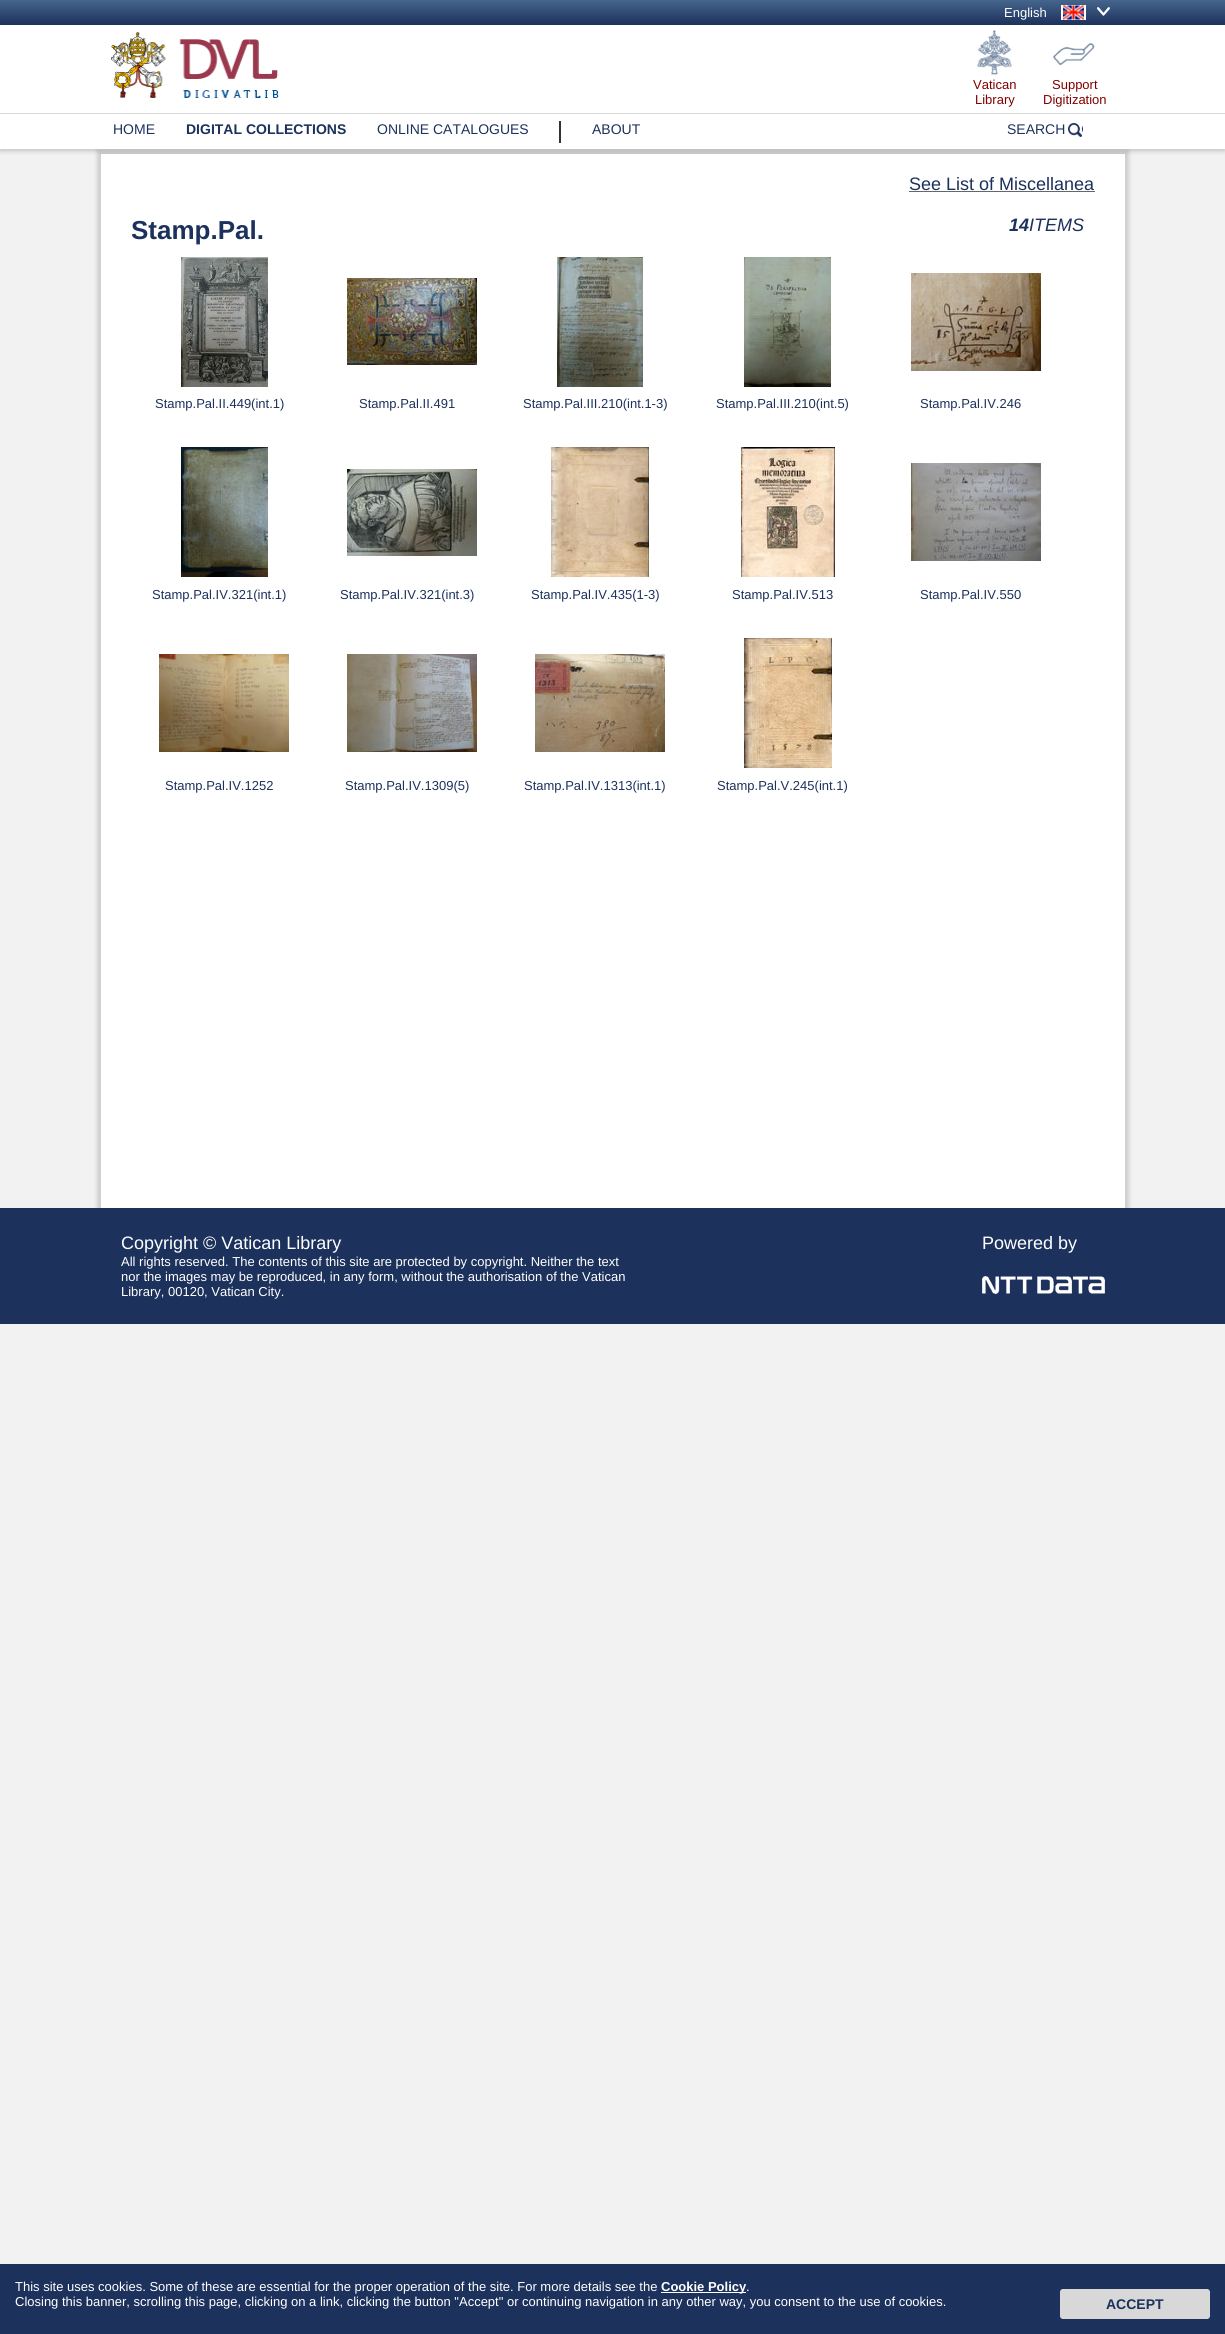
#include <cairo/cairo.h>
#include <math.h>
#include <stddef.h>

static cairo_t *cr;

static void use_color(int r, int g, int b) {
  cairo_set_source_rgb(cr, r / 255.0, g / 255.0, b / 255.0);
}

static void text(double x, double y, const char *s, const char *family, double size, int italic, int bold, int r, int g, int b) {
  cairo_select_font_face(cr, family, italic ? CAIRO_FONT_SLANT_ITALIC : CAIRO_FONT_SLANT_NORMAL,
    bold ? CAIRO_FONT_WEIGHT_BOLD : CAIRO_FONT_WEIGHT_NORMAL);
  cairo_set_font_size(cr, size);
  use_color(r, g, b);
  cairo_move_to(cr, x, y);
  cairo_show_text(cr, s);
}

static void box(double x, double y, double w, double h, int r, int g, int b) {
  use_color(r, g, b);
  cairo_rectangle(cr, x, y, w, h);
  cairo_fill(cr);
}

static void round_rect(double x, double y, double w, double h, double r) {
  cairo_new_sub_path(cr);
  cairo_arc(cr, x + w - r, y + h - r, r, 0, M_PI / 2);
  cairo_arc(cr, x + r, y + h - r, r, M_PI / 2, M_PI);
  cairo_arc(cr, x + r, y + r, r, M_PI, 1.5 * M_PI);
  cairo_arc(cr, x + w - r, y + r, r, 1.5 * M_PI, 2 * M_PI);
  cairo_close_path(cr);
}

static void shadow(double x, double y, double w, double h, double r, double blur, double alpha) {
  cairo_push_group_with_content(cr, CAIRO_CONTENT_ALPHA);
  cairo_set_operator(cr, CAIRO_OPERATOR_SOURCE);
  for (int i = 15; i >= -15 && fmin(w, h) + blur * i / 3 > 0; i -= 2) {
    double e = blur * i / 6;
    cairo_set_source_rgba(cr, 0, 0, 0, alpha * erfc((i - 1) / 8.5) / 2);
    round_rect(x - e, y - e, w + 2 * e, h + 2 * e, fmax(0, fmin(r + e + blur * .6, fmin(w, h) / 2 + e)));
    cairo_fill(cr);
  }
  cairo_pattern_t *soft = cairo_pop_group(cr);
  cairo_mask(cr, soft);
  cairo_pattern_destroy(soft);
}

static void picture(const char *path, double x, double y, double w, double h) {
  cairo_surface_t *image = cairo_image_surface_create_from_png(path);
  cairo_save(cr);
  cairo_set_source_surface(cr, image, x, y);
  cairo_rectangle(cr, x, y, w, h);
  cairo_fill(cr);
  cairo_restore(cr);
  cairo_surface_destroy(image);
}

static void draw(void) {
  cairo_pattern_t *gradient;
  use_color(242, 242, 242);
  cairo_paint(cr);
  box(0, 1208, 1225, 116, 28, 49, 91);
  cairo_save(cr);
  cairo_rectangle(cr, 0, 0, 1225, 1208);
  cairo_clip(cr);
  use_color(0, 0, 0);
  shadow(97, 150, 1032, 1062, 0, 2, 0.15);
  cairo_restore(cr);
  box(101, 154, 1024, 1054, 255, 255, 255);
  use_color(0, 0, 0);
  shadow(0, 2, 1225, 149, 0, 2.5, 0.2);
  box(0, 25, 1225, 124, 255, 255, 255);
  gradient = cairo_pattern_create_linear(613, 0, 613, 25);
  cairo_pattern_add_color_stop_rgba(gradient, 0.01, 0.271, 0.396, 0.553, 1);
  cairo_pattern_add_color_stop_rgba(gradient, 1, 0.11, 0.192, 0.357, 1);
  cairo_pattern_add_color_stop_rgba(gradient, 1, 0.125, 0.486, 0.792, 1);
  cairo_set_source(cr, gradient);
  cairo_pattern_destroy(gradient);
  cairo_rectangle(cr, 0, 0, 1225, 25);
  cairo_fill(cr);
  picture("img_01.png", 1061, 5, 25, 15);
  picture("img_02.png", 1097, 7, 13, 9);
  box(0, 113, 1225, 1, 216, 216, 216);
  picture("img_03.png", 111, 32, 168, 66);
  picture("img_04.png", 977, 29, 35, 46);
  picture("img_05.png", 1053, 43, 42, 23);
  box(559, 121, 2, 22, 51, 51, 51);
  picture("img_06.png", 1068, 123, 15, 14);
  box(909, 191, 186, 1, 102, 102, 102);
  picture("img_07.png", 181, 257, 87, 130);
  picture("img_08.png", 347, 278, 130, 87);
  picture("img_09.png", 557, 257, 86, 130);
  picture("img_10.png", 744, 257, 87, 130);
  picture("img_11.png", 911, 273, 130, 98);
  picture("img_12.png", 181, 447, 87, 130);
  picture("img_13.png", 347, 469, 130, 87);
  picture("img_14.png", 551, 447, 98, 130);
  picture("img_15.png", 741, 447, 94, 130);
  picture("img_16.png", 911, 463, 130, 98);
  picture("img_17.png", 159, 654, 130, 98);
  picture("img_18.png", 347, 654, 130, 98);
  picture("img_19.png", 535, 654, 130, 98);
  picture("img_20.png", 744, 638, 88, 130);
  picture("img_21.png", 982, 1276, 123, 18);
  box(0, 2264, 1225, 70, 28, 49, 91);
  box(661, 2292, 85, 1, 255, 255, 255);
  use_color(216, 216, 216);
  round_rect(1060.5, 2289.5, 149, 29, 2.5);
  cairo_fill_preserve(cr);
  cairo_set_line_width(cr, 1);
  cairo_stroke(cr);
  text(1004, 17, "English", "Liberation Sans", 13, 0, 0, 255, 255, 255);
  text(973, 89, "Vatican", "Liberation Sans", 13, 0, 0, 128, 0, 0);
  text(975, 104, "Library", "Liberation Sans", 13, 0, 0, 128, 0, 0);
  text(1052, 89, "Support", "Liberation Sans", 13, 0, 0, 128, 0, 0);
  text(1043, 104, "Digitization", "Liberation Sans", 13, 0, 0, 128, 0, 0);
  text(113, 134, "HOME", "Liberation Sans", 14, 0, 0, 28, 49, 91);
  text(186, 134, "DIGITAL COLLECTIONS", "Liberation Sans", 14, 0, 1, 28, 49, 91);
  text(377, 134, "ONLINE CATALOGUES", "Liberation Sans", 14, 0, 0, 28, 49, 91);
  text(592, 134, "ABOUT", "Liberation Sans", 14, 0, 0, 28, 49, 91);
  text(1007, 134, "SEARCH", "Liberation Sans", 14, 0, 0, 28, 49, 91);
  text(909, 190, "See List of Miscellanea", "Liberation Sans", 18, 0, 0, 28, 49, 91);
  text(131, 239, "Stamp.Pal.", "Liberation Sans", 26, 0, 1, 28, 49, 91);
  text(1009, 231, "14", "Liberation Sans", 18, 1, 1, 28, 49, 91);
  text(1029, 231, "ITEMS", "Liberation Sans", 18, 1, 0, 28, 49, 91);
  text(155, 408, "Stamp.Pal.II.449(int.1)", "Liberation Sans", 13, 0, 0, 28, 49, 91);
  text(359, 408, "Stamp.Pal.II.491", "Liberation Sans", 13, 0, 0, 28, 49, 91);
  text(523, 408, "Stamp.Pal.III.210(int.1-3)", "Liberation Sans", 13, 0, 0, 28, 49, 91);
  text(716, 408, "Stamp.Pal.III.210(int.5)", "Liberation Sans", 13, 0, 0, 28, 49, 91);
  text(920, 408, "Stamp.Pal.IV.246", "Liberation Sans", 13, 0, 0, 28, 49, 91);
  text(152, 599, "Stamp.Pal.IV.321(int.1)", "Liberation Sans", 13, 0, 0, 28, 49, 91);
  text(340, 599, "Stamp.Pal.IV.321(int.3)", "Liberation Sans", 13, 0, 0, 28, 49, 91);
  text(531, 599, "Stamp.Pal.IV.435(1-3)", "Liberation Sans", 13, 0, 0, 28, 49, 91);
  text(732, 599, "Stamp.Pal.IV.513", "Liberation Sans", 13, 0, 0, 28, 49, 91);
  text(920, 599, "Stamp.Pal.IV.550", "Liberation Sans", 13, 0, 0, 28, 49, 91);
  text(165, 790, "Stamp.Pal.IV.1252", "Liberation Sans", 13, 0, 0, 28, 49, 91);
  text(345, 790, "Stamp.Pal.IV.1309(5)", "Liberation Sans", 13, 0, 0, 28, 49, 91);
  text(524, 790, "Stamp.Pal.IV.1313(int.1)", "Liberation Sans", 13, 0, 0, 28, 49, 91);
  text(717, 790, "Stamp.Pal.V.245(int.1)", "Liberation Sans", 13, 0, 0, 28, 49, 91);
  text(121, 1249, "Copyright © Vatican Library", "Liberation Sans", 18, 0, 0, 255, 255, 255);
  text(121, 1266, "All rights reserved. The contents of this site are protected by copyright. Neither the text", "Liberation Sans", 13, 0, 0, 255, 255, 255);
  text(121, 1281, "nor the images may be reproduced, in any form, without the authorisation of the Vatican", "Liberation Sans", 13, 0, 0, 255, 255, 255);
  text(121, 1296, "Library, 00120, Vatican City.", "Liberation Sans", 13, 0, 0, 255, 255, 255);
  text(982, 1249, "Powered by", "Liberation Sans", 18, 0, 0, 255, 255, 255);
  text(15, 2291, "This site uses cookies. Some of these are essential for the proper operation of the site. For more details see the", "Liberation Sans", 13, 0, 0, 255, 255, 255);
  text(661, 2291, "Cookie Policy", "Liberation Sans", 13, 0, 1, 255, 255, 255);
  text(746, 2291, ".", "Liberation Sans", 13, 0, 0, 255, 255, 255);
  text(15, 2306, "Closing this banner, scrolling this page, clicking on a link, clicking the button \"Accept\" or continuing navigation in any other way, you consent to the use of cookies.", "Liberation Sans", 13, 0, 0, 255, 255, 255);
  text(1106, 2309, "ACCEPT", "Liberation Sans", 14, 0, 1, 28, 49, 91);
}

int main(void) {
  cairo_surface_t *surface = cairo_image_surface_create(CAIRO_FORMAT_RGB24, 1225, 2334);
  cr = cairo_create(surface);
  cairo_font_options_t *options = cairo_font_options_create();
  cairo_font_options_set_hint_metrics(options, CAIRO_HINT_METRICS_OFF);
  cairo_font_options_set_hint_style(options, CAIRO_HINT_STYLE_NONE);
  cairo_set_font_options(cr, options);
  cairo_set_miter_limit(cr, 4);
  draw();
  cairo_surface_write_to_png(surface, "out.png");
  cairo_font_options_destroy(options);
  cairo_destroy(cr);
  cairo_surface_destroy(surface);
  return 0;
}
